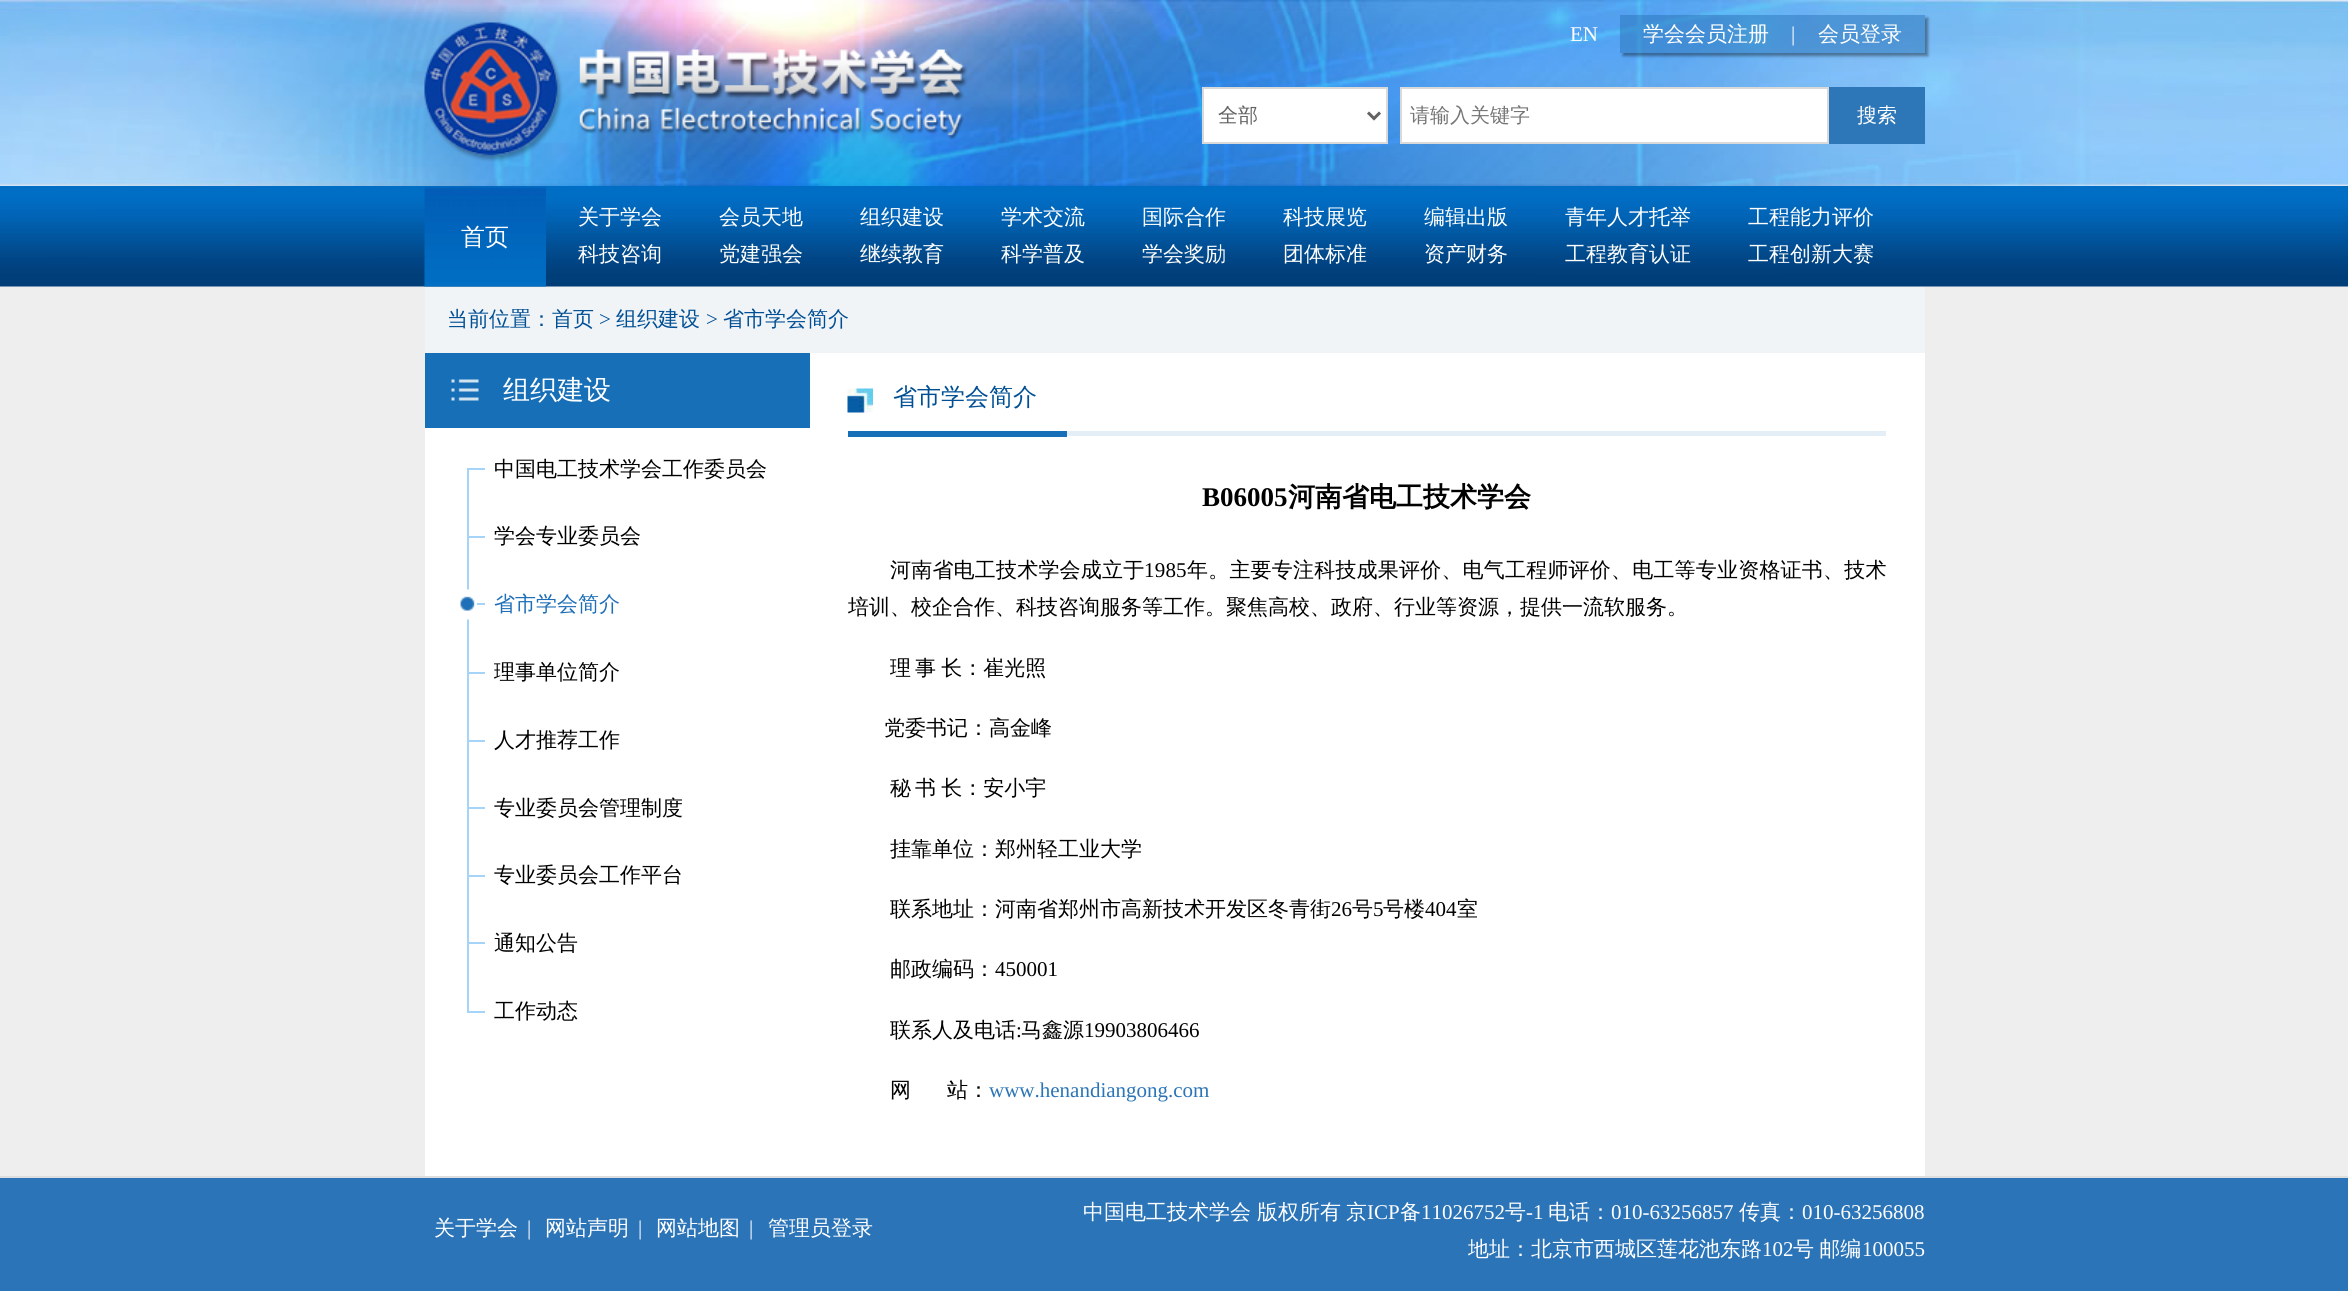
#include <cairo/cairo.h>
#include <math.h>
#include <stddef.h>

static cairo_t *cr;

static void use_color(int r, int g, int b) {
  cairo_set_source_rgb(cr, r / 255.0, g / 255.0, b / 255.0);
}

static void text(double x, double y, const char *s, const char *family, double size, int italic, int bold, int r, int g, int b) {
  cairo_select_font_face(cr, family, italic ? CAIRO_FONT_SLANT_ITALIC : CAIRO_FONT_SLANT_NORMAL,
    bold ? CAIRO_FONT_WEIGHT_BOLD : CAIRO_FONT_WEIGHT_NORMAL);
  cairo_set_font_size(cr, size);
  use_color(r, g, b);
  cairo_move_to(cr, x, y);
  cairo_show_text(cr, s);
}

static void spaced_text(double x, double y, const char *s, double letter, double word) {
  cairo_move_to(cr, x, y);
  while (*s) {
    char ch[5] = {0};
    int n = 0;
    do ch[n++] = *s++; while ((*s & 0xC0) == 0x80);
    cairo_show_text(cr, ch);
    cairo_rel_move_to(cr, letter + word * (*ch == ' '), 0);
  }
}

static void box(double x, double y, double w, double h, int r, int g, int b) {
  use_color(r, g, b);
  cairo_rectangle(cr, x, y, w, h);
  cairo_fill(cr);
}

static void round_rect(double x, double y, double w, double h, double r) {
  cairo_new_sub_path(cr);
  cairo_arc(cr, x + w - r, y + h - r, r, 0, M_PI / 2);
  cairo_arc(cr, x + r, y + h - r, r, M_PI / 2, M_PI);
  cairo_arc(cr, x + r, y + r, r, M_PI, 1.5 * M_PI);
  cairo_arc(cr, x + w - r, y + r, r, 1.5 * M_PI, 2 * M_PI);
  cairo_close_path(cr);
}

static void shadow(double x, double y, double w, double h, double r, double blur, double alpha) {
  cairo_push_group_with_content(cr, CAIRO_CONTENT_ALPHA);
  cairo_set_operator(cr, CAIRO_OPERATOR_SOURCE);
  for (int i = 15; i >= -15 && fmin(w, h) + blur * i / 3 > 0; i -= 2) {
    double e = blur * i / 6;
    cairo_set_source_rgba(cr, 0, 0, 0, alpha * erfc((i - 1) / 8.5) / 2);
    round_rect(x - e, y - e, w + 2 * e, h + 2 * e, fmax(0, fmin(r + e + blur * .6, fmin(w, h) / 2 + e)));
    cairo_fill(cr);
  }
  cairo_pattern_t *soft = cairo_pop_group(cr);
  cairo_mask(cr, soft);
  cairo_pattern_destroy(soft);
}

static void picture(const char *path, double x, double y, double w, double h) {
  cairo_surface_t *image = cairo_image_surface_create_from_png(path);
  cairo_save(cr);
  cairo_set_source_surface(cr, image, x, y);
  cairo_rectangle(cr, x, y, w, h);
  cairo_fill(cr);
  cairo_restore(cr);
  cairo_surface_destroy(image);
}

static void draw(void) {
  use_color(238, 238, 238);
  cairo_paint(cr);
  picture("img_01.png", 0, 0, 2348, 186);
  picture("img_02.png", 424, 22, 544, 140);
  cairo_save(cr);
  cairo_set_fill_rule(cr, CAIRO_FILL_RULE_EVEN_ODD);
  cairo_new_path(cr);
  cairo_move_to(cr, 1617, 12);
  cairo_line_to(cr, 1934, 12);
  cairo_line_to(cr, 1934, 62);
  cairo_line_to(cr, 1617, 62);
  cairo_close_path(cr);
  cairo_move_to(cr, 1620, 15);
  cairo_line_to(cr, 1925, 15);
  cairo_line_to(cr, 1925, 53);
  cairo_line_to(cr, 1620, 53);
  cairo_close_path(cr);
  cairo_clip(cr);
  use_color(0, 0, 0);
  shadow(1623, 18, 305, 38, 0, 1.5, 0.4);
  cairo_restore(cr);
  cairo_set_source_rgba(cr, 0.165, 0.459, 0.722, 0.5);
  cairo_rectangle(cr, 1620, 15, 305, 38);
  cairo_fill(cr);
  use_color(255, 255, 255);
  cairo_rectangle(cr, 1203, 88, 184, 55);
  cairo_fill_preserve(cr);
  use_color(217, 217, 217);
  cairo_stroke(cr);
  cairo_new_path(cr);
  cairo_move_to(cr, 1368, 112.5);
  cairo_line_to(cr, 1374, 118.5);
  cairo_line_to(cr, 1380, 112.5);
  use_color(98, 98, 98);
  cairo_set_line_width(cr, 3);
  cairo_stroke(cr);
  use_color(255, 255, 255);
  cairo_rectangle(cr, 1401, 88, 427, 55);
  cairo_fill_preserve(cr);
  use_color(217, 217, 217);
  cairo_set_line_width(cr, 2);
  cairo_stroke(cr);
  box(1829, 87, 96, 57, 45, 119, 184);
  picture("img_03.png", 0, 186, 2348, 101);
  picture("img_04.png", 424, 186, 122, 101);
  box(425, 287, 1500, 66, 240, 244, 247);
  box(425, 353, 1500, 823, 255, 255, 255);
  box(425, 353, 385, 75, 23, 111, 183);
  picture("img_05.png", 451, 379, 28, 22);
  box(467, 468, 2, 545, 166, 211, 248);
  box(467, 468, 18, 2, 166, 211, 248);
  box(467, 536, 18, 2, 166, 211, 248);
  box(477, 603, 8, 2, 166, 211, 248);
  picture("img_06.png", 460, 589, 17, 31);
  box(467, 672, 18, 2, 166, 211, 248);
  box(467, 740, 18, 2, 166, 211, 248);
  box(467, 807, 18, 2, 166, 211, 248);
  box(467, 875, 18, 2, 166, 211, 248);
  box(467, 942, 18, 2, 166, 211, 248);
  box(467, 1011, 18, 2, 166, 211, 248);
  box(1067, 431, 819, 5, 228, 238, 247);
  picture("img_07.png", 847, 388, 26, 25);
  box(848, 431, 219, 6, 23, 111, 183);
  box(0, 1176, 2348, 2, 221, 221, 221);
  box(0, 1178, 2348, 113, 43, 116, 184);
  text(1570, 41, "EN", "Liberation Serif", 21, 0, 0, 255, 255, 255);
  text(1643, 41, "学会会员注册", "WenQuanYi Zen Hei Medium", 21, 0, 0, 255, 255, 255);
  text(1791, 41, "|", "Liberation Serif", 21, 0, 0, 255, 255, 255);
  text(1818, 41, "会员登录", "WenQuanYi Zen Hei Medium", 21, 0, 0, 255, 255, 255);
  text(1218, 122, "全部", "WenQuanYi Zen Hei Medium", 20, 0, 0, 98, 98, 98);
  text(1410, 122, "请输入关键字", "WenQuanYi Zen Hei Medium", 20, 0, 0, 117, 117, 117);
  text(1857, 122, "搜索", "WenQuanYi Zen Hei Medium", 20, 0, 0, 255, 255, 255);
  text(461, 245, "首页", "WenQuanYi Zen Hei Medium", 24, 0, 0, 255, 255, 255);
  text(578, 224, "关于学会", "WenQuanYi Zen Hei Medium", 21, 0, 0, 255, 255, 255);
  text(719, 224, "会员天地", "WenQuanYi Zen Hei Medium", 21, 0, 0, 255, 255, 255);
  text(860, 224, "组织建设", "WenQuanYi Zen Hei Medium", 21, 0, 0, 255, 255, 255);
  text(1001, 224, "学术交流", "WenQuanYi Zen Hei Medium", 21, 0, 0, 255, 255, 255);
  text(1142, 224, "国际合作", "WenQuanYi Zen Hei Medium", 21, 0, 0, 255, 255, 255);
  text(1283, 224, "科技展览", "WenQuanYi Zen Hei Medium", 21, 0, 0, 255, 255, 255);
  text(1424, 224, "编辑出版", "WenQuanYi Zen Hei Medium", 21, 0, 0, 255, 255, 255);
  text(1565, 224, "青年人才托举", "WenQuanYi Zen Hei Medium", 21, 0, 0, 255, 255, 255);
  text(1748, 224, "工程能力评价", "WenQuanYi Zen Hei Medium", 21, 0, 0, 255, 255, 255);
  text(578, 261, "科技咨询", "WenQuanYi Zen Hei Medium", 21, 0, 0, 255, 255, 255);
  text(719, 261, "党建强会", "WenQuanYi Zen Hei Medium", 21, 0, 0, 255, 255, 255);
  text(860, 261, "继续教育", "WenQuanYi Zen Hei Medium", 21, 0, 0, 255, 255, 255);
  text(1001, 261, "科学普及", "WenQuanYi Zen Hei Medium", 21, 0, 0, 255, 255, 255);
  text(1142, 261, "学会奖励", "WenQuanYi Zen Hei Medium", 21, 0, 0, 255, 255, 255);
  text(1283, 261, "团体标准", "WenQuanYi Zen Hei Medium", 21, 0, 0, 255, 255, 255);
  text(1424, 261, "资产财务", "WenQuanYi Zen Hei Medium", 21, 0, 0, 255, 255, 255);
  text(1565, 261, "工程教育认证", "WenQuanYi Zen Hei Medium", 21, 0, 0, 255, 255, 255);
  text(1748, 261, "工程创新大赛", "WenQuanYi Zen Hei Medium", 21, 0, 0, 255, 255, 255);
  text(447, 326, "当前位置：首页", "WenQuanYi Zen Hei Medium", 21, 0, 0, 0, 79, 148);
  text(599, 326, ">", "Liberation Serif", 21, 0, 0, 0, 79, 148);
  text(616, 326, "组织建设", "WenQuanYi Zen Hei Medium", 21, 0, 0, 0, 79, 148);
  text(706, 326, ">", "Liberation Serif", 21, 0, 0, 0, 79, 148);
  text(723, 326, "省市学会简介", "WenQuanYi Zen Hei Medium", 21, 0, 0, 0, 79, 148);
  text(503, 399, "组织建设", "WenQuanYi Zen Hei Medium", 27, 0, 0, 255, 255, 255);
  text(494, 476, "中国电工技术学会工作委员会", "WenQuanYi Zen Hei Medium", 21, 0, 0, 0, 0, 0);
  text(494, 543, "学会专业委员会", "WenQuanYi Zen Hei Medium", 21, 0, 0, 0, 0, 0);
  text(494, 611, "省市学会简介", "WenQuanYi Zen Hei Medium", 21, 0, 0, 30, 111, 183);
  text(494, 679, "理事单位简介", "WenQuanYi Zen Hei Medium", 21, 0, 0, 0, 0, 0);
  text(494, 747, "人才推荐工作", "WenQuanYi Zen Hei Medium", 21, 0, 0, 0, 0, 0);
  text(494, 815, "专业委员会管理制度", "WenQuanYi Zen Hei Medium", 21, 0, 0, 0, 0, 0);
  text(494, 882, "专业委员会工作平台", "WenQuanYi Zen Hei Medium", 21, 0, 0, 0, 0, 0);
  text(494, 950, "通知公告", "WenQuanYi Zen Hei Medium", 21, 0, 0, 0, 0, 0);
  text(494, 1018, "工作动态", "WenQuanYi Zen Hei Medium", 21, 0, 0, 0, 0, 0);
  text(893, 405, "省市学会简介", "WenQuanYi Zen Hei Medium", 24, 0, 0, 0, 79, 148);
  text(1202, 506, "B06005", "Liberation Serif", 27, 0, 1, 0, 0, 0);
  text(1288, 506, "河南省电工技术学会", "WenQuanYi Zen Hei", 27, 0, 1, 0, 0, 0);
  cairo_select_font_face(cr, "WenQuanYi Zen Hei Medium", CAIRO_FONT_SLANT_NORMAL, CAIRO_FONT_WEIGHT_NORMAL);
  cairo_set_font_size(cr, 21);
  spaced_text(890, 577, "河南省电工技术学会成立于", 0.2, 0);
  cairo_select_font_face(cr, "Liberation Serif", CAIRO_FONT_SLANT_NORMAL, CAIRO_FONT_WEIGHT_NORMAL);
  spaced_text(1144, 577, "1985", 0.2, 0);
  cairo_select_font_face(cr, "WenQuanYi Zen Hei Medium", CAIRO_FONT_SLANT_NORMAL, CAIRO_FONT_WEIGHT_NORMAL);
  spaced_text(1187, 577, "年。主要专注科技成果评价、电气工程师评价、电工等专业资格证书、技术", 0.2, 0);
  text(848, 614, "培训、校企合作、科技咨询服务等工作。聚焦高校、政府、行业等资源，提供一流软服务。", "WenQuanYi Zen Hei Medium", 21, 0, 0, 0, 0, 0);
  text(890, 675, "理", "WenQuanYi Zen Hei Medium", 21, 0, 0, 0, 0, 0);
  spaced_text(915, 675, "事 长：崔光照", 0, -1);
  text(884, 735, "党委书记：高金峰", "WenQuanYi Zen Hei Medium", 21, 0, 0, 0, 0, 0);
  text(890, 795, "秘", "WenQuanYi Zen Hei Medium", 21, 0, 0, 0, 0, 0);
  spaced_text(915, 795, "书 长：安小宇", 0, -1);
  text(890, 856, "挂靠单位：郑州轻工业大学", "WenQuanYi Zen Hei Medium", 21, 0, 0, 0, 0, 0);
  text(890, 916, "联系地址：河南省郑州市高新技术开发区冬青街", "WenQuanYi Zen Hei Medium", 21, 0, 0, 0, 0, 0);
  text(1331, 916, "26", "Liberation Serif", 21, 0, 0, 0, 0, 0);
  text(1352, 916, "号", "WenQuanYi Zen Hei Medium", 21, 0, 0, 0, 0, 0);
  text(1373, 916, "5", "Liberation Serif", 21, 0, 0, 0, 0, 0);
  text(1383, 916, "号楼", "WenQuanYi Zen Hei Medium", 21, 0, 0, 0, 0, 0);
  text(1425, 916, "404", "Liberation Serif", 21, 0, 0, 0, 0, 0);
  text(1457, 916, "室", "WenQuanYi Zen Hei Medium", 21, 0, 0, 0, 0, 0);
  text(890, 976, "邮政编码：", "WenQuanYi Zen Hei Medium", 21, 0, 0, 0, 0, 0);
  text(995, 976, "450001", "Liberation Serif", 21, 0, 0, 0, 0, 0);
  text(890, 1037, "联系人及电话", "WenQuanYi Zen Hei Medium", 21, 0, 0, 0, 0, 0);
  text(1016, 1037, ":", "Liberation Serif", 21, 0, 0, 0, 0, 0);
  text(1021, 1037, "马鑫源", "WenQuanYi Zen Hei Medium", 21, 0, 0, 0, 0, 0);
  text(1084, 1037, "19903806466", "Liberation Serif", 21, 0, 0, 0, 0, 0);
  text(890, 1097, "网", "WenQuanYi Zen Hei Medium", 21, 0, 0, 0, 0, 0);
  text(947, 1097, "站：", "WenQuanYi Zen Hei Medium", 21, 0, 0, 0, 0, 0);
  text(989, 1097, "www.henandiangong.com", "Liberation Serif", 21, 0, 0, 43, 117, 183);
  text(434, 1235, "关于学会", "WenQuanYi Zen Hei Medium", 21, 0, 0, 255, 255, 255);
  text(527, 1235, "|", "Liberation Serif", 21, 0, 0, 255, 255, 255);
  text(545, 1235, "网站声明", "WenQuanYi Zen Hei Medium", 21, 0, 0, 255, 255, 255);
  text(638, 1235, "|", "Liberation Serif", 21, 0, 0, 255, 255, 255);
  text(656, 1235, "网站地图", "WenQuanYi Zen Hei Medium", 21, 0, 0, 255, 255, 255);
  text(749, 1235, "|", "Liberation Serif", 21, 0, 0, 255, 255, 255);
  text(768, 1235, "管理员登录", "WenQuanYi Zen Hei Medium", 21, 0, 0, 255, 255, 255);
  text(1083, 1219, "中国电工技术学会", "WenQuanYi Zen Hei Medium", 21, 0, 0, 255, 255, 255);
  text(1257, 1219, "版权所有", "WenQuanYi Zen Hei Medium", 21, 0, 0, 255, 255, 255);
  text(1346, 1219, "京", "WenQuanYi Zen Hei Medium", 21, 0, 0, 255, 255, 255);
  text(1367, 1219, "ICP", "Liberation Serif", 21, 0, 0, 255, 255, 255);
  text(1400, 1219, "备", "WenQuanYi Zen Hei Medium", 21, 0, 0, 255, 255, 255);
  text(1421, 1219, "11026752", "Liberation Serif", 21, 0, 0, 255, 255, 255);
  text(1505, 1219, "号", "WenQuanYi Zen Hei Medium", 21, 0, 0, 255, 255, 255);
  text(1526, 1219, "-1", "Liberation Serif", 21, 0, 0, 255, 255, 255);
  text(1548, 1219, "电话：", "WenQuanYi Zen Hei Medium", 21, 0, 0, 255, 255, 255);
  text(1611, 1219, "010-63256857", "Liberation Serif", 21, 0, 0, 255, 255, 255);
  text(1739, 1219, "传真：", "WenQuanYi Zen Hei Medium", 21, 0, 0, 255, 255, 255);
  text(1802, 1219, "010-63256808", "Liberation Serif", 21, 0, 0, 255, 255, 255);
  text(1468, 1256, "地址：北京市西城区莲花池东路", "WenQuanYi Zen Hei Medium", 21, 0, 0, 255, 255, 255);
  text(1762, 1256, "102", "Liberation Serif", 21, 0, 0, 255, 255, 255);
  cairo_select_font_face(cr, "WenQuanYi Zen Hei Medium", CAIRO_FONT_SLANT_NORMAL, CAIRO_FONT_WEIGHT_NORMAL);
  spaced_text(1793, 1256, "号 邮编", 0, -1);
  text(1862, 1256, "100055", "Liberation Serif", 21, 0, 0, 255, 255, 255);
}

int main(void) {
  cairo_surface_t *surface = cairo_image_surface_create(CAIRO_FORMAT_RGB24, 2348, 1291);
  cr = cairo_create(surface);
  cairo_font_options_t *options = cairo_font_options_create();
  cairo_font_options_set_hint_metrics(options, CAIRO_HINT_METRICS_OFF);
  cairo_font_options_set_hint_style(options, CAIRO_HINT_STYLE_NONE);
  cairo_set_font_options(cr, options);
  cairo_set_miter_limit(cr, 4);
  draw();
  cairo_surface_write_to_png(surface, "out.png");
  cairo_font_options_destroy(options);
  cairo_destroy(cr);
  cairo_surface_destroy(surface);
  return 0;
}
